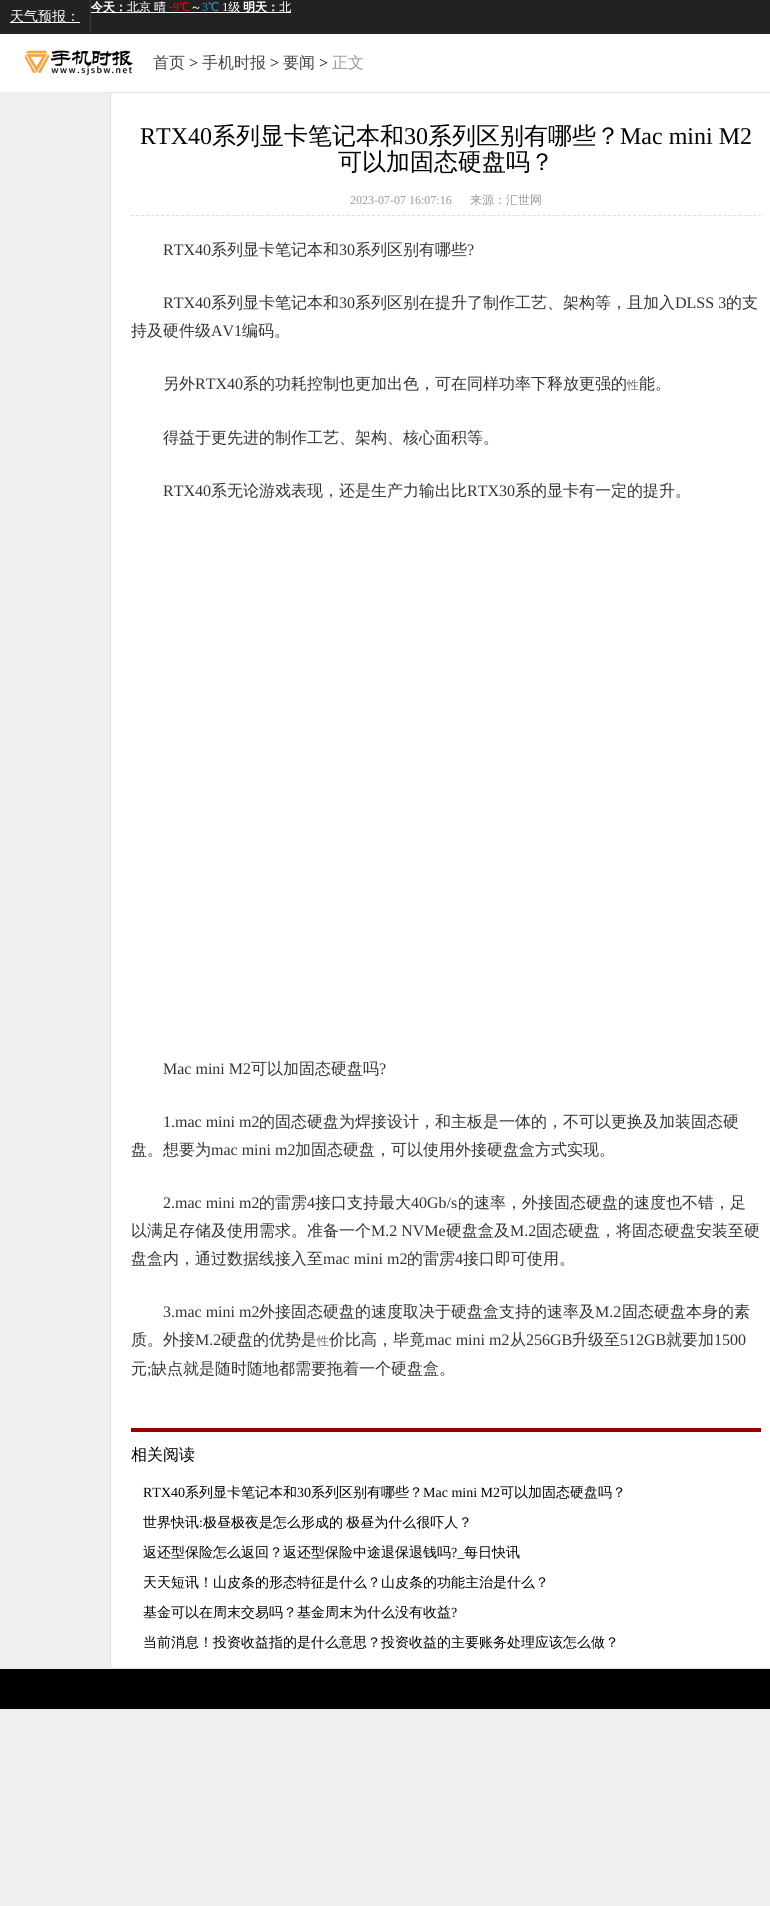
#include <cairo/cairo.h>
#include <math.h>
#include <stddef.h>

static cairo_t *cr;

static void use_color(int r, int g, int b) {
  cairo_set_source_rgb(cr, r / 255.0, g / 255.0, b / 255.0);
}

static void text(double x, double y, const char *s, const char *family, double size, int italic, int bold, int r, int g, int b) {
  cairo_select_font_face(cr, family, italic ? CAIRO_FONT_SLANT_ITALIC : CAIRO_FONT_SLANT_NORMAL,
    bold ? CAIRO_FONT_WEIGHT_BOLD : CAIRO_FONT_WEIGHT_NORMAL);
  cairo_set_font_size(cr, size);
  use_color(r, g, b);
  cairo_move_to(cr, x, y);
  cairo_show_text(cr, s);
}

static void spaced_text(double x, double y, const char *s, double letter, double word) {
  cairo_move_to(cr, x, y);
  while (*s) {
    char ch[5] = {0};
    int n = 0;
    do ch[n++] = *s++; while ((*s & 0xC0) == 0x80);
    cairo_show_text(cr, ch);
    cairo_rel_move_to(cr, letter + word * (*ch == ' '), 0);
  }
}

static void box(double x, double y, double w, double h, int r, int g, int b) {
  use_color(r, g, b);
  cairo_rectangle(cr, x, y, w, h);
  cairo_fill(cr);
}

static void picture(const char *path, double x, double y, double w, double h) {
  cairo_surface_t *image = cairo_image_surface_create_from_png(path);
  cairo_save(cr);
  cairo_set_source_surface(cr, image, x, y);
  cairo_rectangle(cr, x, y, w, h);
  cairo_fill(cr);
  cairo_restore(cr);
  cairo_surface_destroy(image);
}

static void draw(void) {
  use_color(239, 239, 239);
  cairo_paint(cr);
  box(0, 0, 770, 34, 34, 34, 34);
  picture("img_01.png", 91, 1, 200, 12);
  box(90, 0, 1, 34, 58, 58, 58);
  box(10, 22, 70, 1, 255, 255, 255);
  box(0, 34, 770, 58, 255, 255, 255);
  picture("img_02.png", 25, 50, 108, 25);
  cairo_rectangle(cr, 110.5, 92.5, 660, 1576);
  cairo_fill_preserve(cr);
  use_color(223, 223, 223);
  cairo_set_line_width(cr, 1);
  cairo_stroke(cr);
  cairo_new_path(cr);
  cairo_move_to(cr, 131, 215.5);
  cairo_line_to(cr, 761, 215.5);
  cairo_set_dash(cr, (double[]){3, 2.02}, 2, 0);
  cairo_stroke(cr);
  box(131, 1428, 630, 4, 153, 0, 0);
  box(0, 1669, 770, 40, 0, 0, 0);
  text(10, 21, "天气预报：", "WenQuanYi Zen Hei Medium", 14, 0, 0, 255, 255, 255);
  text(153, 68, "首页", "WenQuanYi Zen Hei Medium", 16, 0, 0, 68, 68, 68);
  text(189, 68, ">", "Liberation Serif", 16, 0, 0, 0, 0, 0);
  text(202, 68, "手机时报", "WenQuanYi Zen Hei Medium", 16, 0, 0, 68, 68, 68);
  text(270, 68, ">", "Liberation Serif", 16, 0, 0, 0, 0, 0);
  text(283, 68, "要闻", "WenQuanYi Zen Hei Medium", 16, 0, 0, 68, 68, 68);
  text(319, 68, ">", "Liberation Serif", 16, 0, 0, 0, 0, 0);
  text(332, 68, "正文", "WenQuanYi Zen Hei Medium", 16, 0, 0, 153, 153, 153);
  text(140, 144, "RTX40", "Liberation Serif", 24, 0, 0, 0, 0, 0);
  text(212, 144, "系列显卡笔记本和", "WenQuanYi Zen Hei Medium", 24, 0, 0, 0, 0, 0);
  text(404, 144, "30", "Liberation Serif", 24, 0, 0, 0, 0, 0);
  text(428, 144, "系列区别有哪些？", "WenQuanYi Zen Hei Medium", 24, 0, 0, 0, 0, 0);
  text(620, 144, "Mac mini M2", "Liberation Serif", 24, 0, 0, 0, 0, 0);
  text(338, 170, "可以加固态硬盘吗？", "WenQuanYi Zen Hei Medium", 24, 0, 0, 0, 0, 0);
  text(350, 204, "2023-07-07 16:07:16", "Liberation Serif", 12, 0, 0, 153, 153, 153);
  text(470, 204, "来源：汇世网", "WenQuanYi Zen Hei Medium", 12, 0, 0, 153, 153, 153);
  text(163, 255, "RTX40", "Liberation Serif", 16, 0, 0, 51, 51, 51);
  text(211, 255, "系列显卡笔记本和", "WenQuanYi Zen Hei Medium", 16, 0, 0, 51, 51, 51);
  text(339, 255, "30", "Liberation Serif", 16, 0, 0, 51, 51, 51);
  text(355, 255, "系列区别有哪些", "WenQuanYi Zen Hei Medium", 16, 0, 0, 51, 51, 51);
  text(467, 255, "?", "Liberation Serif", 16, 0, 0, 51, 51, 51);
  text(163, 308, "RTX40", "Liberation Serif", 16, 0, 0, 51, 51, 51);
  text(211, 308, "系列显卡笔记本和", "WenQuanYi Zen Hei Medium", 16, 0, 0, 51, 51, 51);
  text(339, 308, "30", "Liberation Serif", 16, 0, 0, 51, 51, 51);
  text(355, 308, "系列区别在提升了制作工艺、架构等，且加入", "WenQuanYi Zen Hei Medium", 16, 0, 0, 51, 51, 51);
  text(675, 308, "DLSS 3", "Liberation Serif", 16, 0, 0, 51, 51, 51);
  text(726, 308, "的支", "WenQuanYi Zen Hei Medium", 16, 0, 0, 51, 51, 51);
  text(131, 336, "持及硬件级", "WenQuanYi Zen Hei Medium", 16, 0, 0, 51, 51, 51);
  text(211, 336, "AV1", "Liberation Serif", 16, 0, 0, 51, 51, 51);
  text(242, 336, "编码。", "WenQuanYi Zen Hei Medium", 16, 0, 0, 51, 51, 51);
  text(163, 389, "另外", "WenQuanYi Zen Hei Medium", 16, 0, 0, 51, 51, 51);
  text(195, 389, "RTX40", "Liberation Serif", 16, 0, 0, 51, 51, 51);
  text(243, 389, "系的功耗控制也更加出色，可在同样功率下释放更强的", "WenQuanYi Zen Hei Medium", 16, 0, 0, 51, 51, 51);
  text(627, 389, "性", "WenQuanYi Zen Hei Medium", 12, 0, 0, 102, 102, 102);
  text(639, 389, "能。", "WenQuanYi Zen Hei Medium", 16, 0, 0, 51, 51, 51);
  text(163, 443, "得益于更先进的制作工艺、架构、核心面积等。", "WenQuanYi Zen Hei Medium", 16, 0, 0, 51, 51, 51);
  text(163, 496, "RTX40", "Liberation Serif", 16, 0, 0, 51, 51, 51);
  text(211, 496, "系无论游戏表现，还是生产力输出比", "WenQuanYi Zen Hei Medium", 16, 0, 0, 51, 51, 51);
  text(467, 496, "RTX30", "Liberation Serif", 16, 0, 0, 51, 51, 51);
  text(515, 496, "系的显卡有一定的提升。", "WenQuanYi Zen Hei Medium", 16, 0, 0, 51, 51, 51);
  text(163, 1074, "Mac mini M2", "Liberation Serif", 16, 0, 0, 51, 51, 51);
  text(251, 1074, "可以加固态硬盘吗", "WenQuanYi Zen Hei Medium", 16, 0, 0, 51, 51, 51);
  text(379, 1074, "?", "Liberation Serif", 16, 0, 0, 51, 51, 51);
  text(163, 1127, "1.mac mini m2", "Liberation Serif", 16, 0, 0, 51, 51, 51);
  text(259, 1127, "的固态硬盘为焊接设计，和主板是一体的，不可以更换及加装固态硬", "WenQuanYi Zen Hei Medium", 16, 0, 0, 51, 51, 51);
  text(131, 1155, "盘。想要为", "WenQuanYi Zen Hei Medium", 16, 0, 0, 51, 51, 51);
  text(211, 1155, "mac mini m2", "Liberation Serif", 16, 0, 0, 51, 51, 51);
  text(295, 1155, "加固态硬盘，可以使用外接硬盘盒方式实现。", "WenQuanYi Zen Hei Medium", 16, 0, 0, 51, 51, 51);
  text(163, 1208, "2.mac mini m2", "Liberation Serif", 16, 0, 0, 51, 51, 51);
  text(259, 1208, "的雷雳", "WenQuanYi Zen Hei Medium", 16, 0, 0, 51, 51, 51);
  text(307, 1208, "4", "Liberation Serif", 16, 0, 0, 51, 51, 51);
  text(315, 1208, "接口支持最大", "WenQuanYi Zen Hei Medium", 16, 0, 0, 51, 51, 51);
  text(411, 1208, "40Gb/s", "Liberation Serif", 16, 0, 0, 51, 51, 51);
  text(458, 1208, "的速率，外接固态硬盘的速度也不错，足", "WenQuanYi Zen Hei Medium", 16, 0, 0, 51, 51, 51);
  text(131, 1236, "以满足存储及使用需求。准备一个", "WenQuanYi Zen Hei Medium", 16, 0, 0, 51, 51, 51);
  text(371, 1236, "M.2 NVMe", "Liberation Serif", 16, 0, 0, 51, 51, 51);
  text(446, 1236, "硬盘盒及", "WenQuanYi Zen Hei Medium", 16, 0, 0, 51, 51, 51);
  text(510, 1236, "M.2", "Liberation Serif", 16, 0, 0, 51, 51, 51);
  text(536, 1236, "固态硬盘，将固态硬盘安装至硬", "WenQuanYi Zen Hei Medium", 16, 0, 0, 51, 51, 51);
  text(131, 1264, "盘盒内，通过数据线接入至", "WenQuanYi Zen Hei Medium", 16, 0, 0, 51, 51, 51);
  text(323, 1264, "mac mini m2", "Liberation Serif", 16, 0, 0, 51, 51, 51);
  text(407, 1264, "的雷雳", "WenQuanYi Zen Hei Medium", 16, 0, 0, 51, 51, 51);
  text(455, 1264, "4", "Liberation Serif", 16, 0, 0, 51, 51, 51);
  text(463, 1264, "接口即可使用。", "WenQuanYi Zen Hei Medium", 16, 0, 0, 51, 51, 51);
  text(163, 1317, "3.mac mini m2", "Liberation Serif", 16, 0, 0, 51, 51, 51);
  text(259, 1317, "外接固态硬盘的速度取决于硬盘盒支持的速率及", "WenQuanYi Zen Hei Medium", 16, 0, 0, 51, 51, 51);
  text(595, 1317, "M.2", "Liberation Serif", 16, 0, 0, 51, 51, 51);
  text(622, 1317, "固态硬盘本身的素", "WenQuanYi Zen Hei Medium", 16, 0, 0, 51, 51, 51);
  text(131, 1345, "质。外接", "WenQuanYi Zen Hei Medium", 16, 0, 0, 51, 51, 51);
  text(195, 1345, "M.2", "Liberation Serif", 16, 0, 0, 51, 51, 51);
  text(221, 1345, "硬盘的优势是", "WenQuanYi Zen Hei Medium", 16, 0, 0, 51, 51, 51);
  text(317, 1345, "性", "WenQuanYi Zen Hei Medium", 12, 0, 0, 102, 102, 102);
  text(329, 1345, "价比高，毕竟", "WenQuanYi Zen Hei Medium", 16, 0, 0, 51, 51, 51);
  text(425, 1345, "mac mini m2", "Liberation Serif", 16, 0, 0, 51, 51, 51);
  text(510, 1345, "从", "WenQuanYi Zen Hei Medium", 16, 0, 0, 51, 51, 51);
  text(526, 1345, "256GB", "Liberation Serif", 16, 0, 0, 51, 51, 51);
  text(572, 1345, "升级至", "WenQuanYi Zen Hei Medium", 16, 0, 0, 51, 51, 51);
  text(620, 1345, "512GB", "Liberation Serif", 16, 0, 0, 51, 51, 51);
  text(666, 1345, "就要加", "WenQuanYi Zen Hei Medium", 16, 0, 0, 51, 51, 51);
  text(714, 1345, "1500", "Liberation Serif", 16, 0, 0, 51, 51, 51);
  text(131, 1374, "元", "WenQuanYi Zen Hei Medium", 16, 0, 0, 51, 51, 51);
  text(147, 1374, ";", "Liberation Serif", 16, 0, 0, 51, 51, 51);
  text(151, 1374, "缺点就是随时随地都需要拖着一个硬盘盒。", "WenQuanYi Zen Hei Medium", 16, 0, 0, 51, 51, 51);
  text(131, 1460, "相关阅读", "WenQuanYi Zen Hei Medium", 16, 0, 0, 0, 0, 0);
  text(143, 1497, "RTX40", "Liberation Serif", 14, 0, 0, 0, 0, 0);
  text(185, 1497, "系列显卡笔记本和", "WenQuanYi Zen Hei Medium", 14, 0, 0, 0, 0, 0);
  text(297, 1497, "30", "Liberation Serif", 14, 0, 0, 0, 0, 0);
  text(311, 1497, "系列区别有哪些？", "WenQuanYi Zen Hei Medium", 14, 0, 0, 0, 0, 0);
  text(423, 1497, "Mac mini M2", "Liberation Serif", 14, 0, 0, 0, 0, 0);
  text(500, 1497, "可以加固态硬盘吗？", "WenQuanYi Zen Hei Medium", 14, 0, 0, 0, 0, 0);
  text(143, 1527, "世界快讯", "WenQuanYi Zen Hei Medium", 14, 0, 0, 0, 0, 0);
  text(199, 1527, ":", "Liberation Serif", 14, 0, 0, 0, 0, 0);
  cairo_select_font_face(cr, "WenQuanYi Zen Hei Medium", CAIRO_FONT_SLANT_NORMAL, CAIRO_FONT_WEIGHT_NORMAL);
  spaced_text(203, 1527, "极昼极夜是怎么形成的 极昼为什么很吓人？", 0, -1);
  text(143, 1557, "返还型保险怎么返回？返还型保险中途退保退钱吗", "WenQuanYi Zen Hei Medium", 14, 0, 0, 0, 0, 0);
  text(451, 1557, "?_", "Liberation Serif", 14, 0, 0, 0, 0, 0);
  text(464, 1557, "每日快讯", "WenQuanYi Zen Hei Medium", 14, 0, 0, 0, 0, 0);
  text(143, 1587, "天天短讯！山皮条的形态特征是什么？山皮条的功能主治是什么？", "WenQuanYi Zen Hei Medium", 14, 0, 0, 0, 0, 0);
  text(143, 1617, "基金可以在周末交易吗？基金周末为什么没有收益", "WenQuanYi Zen Hei Medium", 14, 0, 0, 0, 0, 0);
  text(451, 1617, "?", "Liberation Serif", 14, 0, 0, 0, 0, 0);
  text(143, 1647, "当前消息！投资收益指的是什么意思？投资收益的主要账务处理应该怎么做？", "WenQuanYi Zen Hei Medium", 14, 0, 0, 0, 0, 0);
}

int main(void) {
  cairo_surface_t *surface = cairo_image_surface_create(CAIRO_FORMAT_RGB24, 770, 1906);
  cr = cairo_create(surface);
  cairo_font_options_t *options = cairo_font_options_create();
  cairo_font_options_set_hint_metrics(options, CAIRO_HINT_METRICS_OFF);
  cairo_font_options_set_hint_style(options, CAIRO_HINT_STYLE_NONE);
  cairo_set_font_options(cr, options);
  cairo_set_miter_limit(cr, 4);
  draw();
  cairo_surface_write_to_png(surface, "out.png");
  cairo_font_options_destroy(options);
  cairo_destroy(cr);
  cairo_surface_destroy(surface);
  return 0;
}
